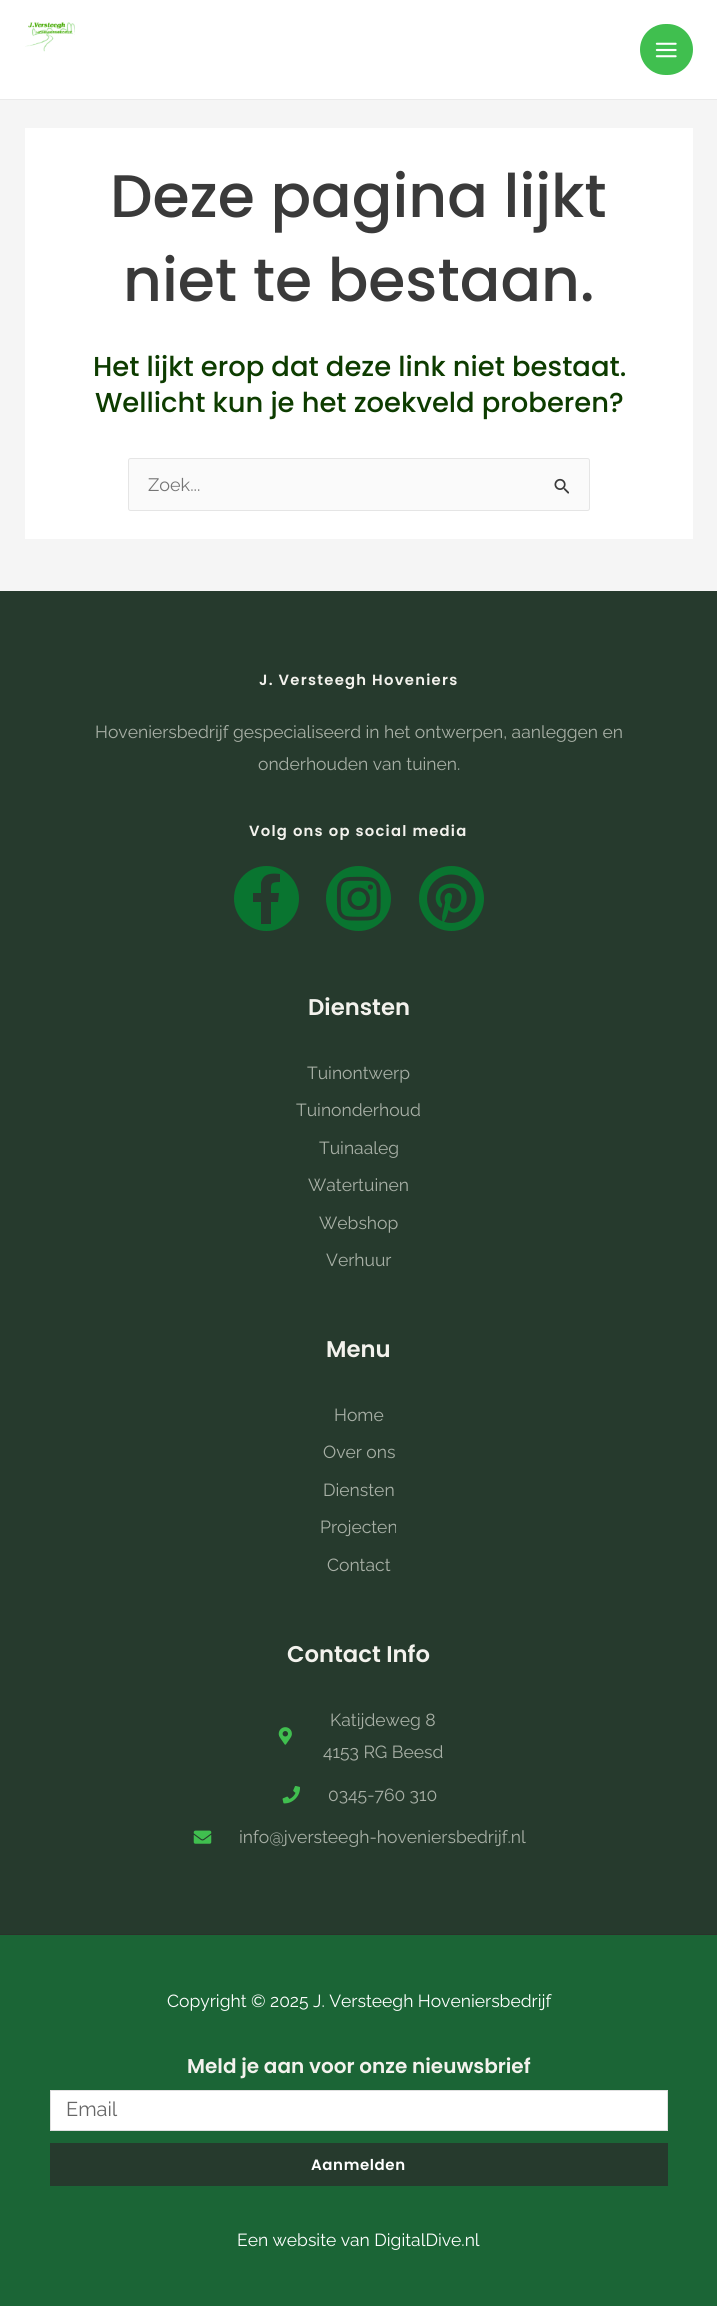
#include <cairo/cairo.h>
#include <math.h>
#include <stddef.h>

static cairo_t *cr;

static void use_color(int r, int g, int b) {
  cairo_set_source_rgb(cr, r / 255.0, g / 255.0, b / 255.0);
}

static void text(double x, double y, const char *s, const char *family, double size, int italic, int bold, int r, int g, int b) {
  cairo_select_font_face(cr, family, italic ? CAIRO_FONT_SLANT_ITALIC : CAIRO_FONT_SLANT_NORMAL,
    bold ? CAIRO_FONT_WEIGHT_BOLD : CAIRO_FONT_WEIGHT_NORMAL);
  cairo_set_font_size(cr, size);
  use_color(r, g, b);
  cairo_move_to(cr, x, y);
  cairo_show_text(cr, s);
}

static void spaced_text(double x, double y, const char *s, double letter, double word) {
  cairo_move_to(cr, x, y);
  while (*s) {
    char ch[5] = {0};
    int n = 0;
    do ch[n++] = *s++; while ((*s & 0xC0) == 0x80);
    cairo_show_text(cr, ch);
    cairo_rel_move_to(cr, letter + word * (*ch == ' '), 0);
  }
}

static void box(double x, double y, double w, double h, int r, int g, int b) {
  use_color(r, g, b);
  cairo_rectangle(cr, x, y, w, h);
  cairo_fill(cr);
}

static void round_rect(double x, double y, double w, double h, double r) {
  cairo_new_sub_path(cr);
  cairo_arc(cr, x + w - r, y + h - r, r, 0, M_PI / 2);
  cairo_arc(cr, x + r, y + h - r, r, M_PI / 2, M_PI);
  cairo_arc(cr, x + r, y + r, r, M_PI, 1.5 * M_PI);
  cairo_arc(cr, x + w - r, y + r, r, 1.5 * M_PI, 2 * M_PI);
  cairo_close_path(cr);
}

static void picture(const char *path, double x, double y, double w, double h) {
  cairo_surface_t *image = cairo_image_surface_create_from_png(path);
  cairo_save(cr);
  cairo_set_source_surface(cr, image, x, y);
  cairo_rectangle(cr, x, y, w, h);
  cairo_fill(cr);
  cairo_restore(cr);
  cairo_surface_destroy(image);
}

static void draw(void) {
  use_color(245, 245, 245);
  cairo_paint(cr);
  box(0, 0, 717, 99, 255, 255, 255);
  box(0, 99, 717, 1, 234, 234, 234);
  picture("img_01.png", 25, 22, 50, 30);
  use_color(64, 191, 79);
  round_rect(640, 24, 53, 51, 25.5);
  cairo_fill(cr);
  picture("img_02.png", 655, 42, 22, 16);
  box(25, 128, 668, 411, 255, 255, 255);
  use_color(250, 250, 250);
  round_rect(128.5, 458.5, 461, 52, 2);
  cairo_fill_preserve(cr);
  use_color(229, 229, 229);
  cairo_set_line_width(cr, 1);
  cairo_stroke(cr);
  picture("img_03.png", 554, 478, 15, 16);
  box(0, 591, 717, 1343, 38, 58, 45);
  use_color(9, 117, 48);
  cairo_arc(cr, 266.5, 898.5, 32.5, 0, 2 * M_PI);
  cairo_fill(cr);
  use_color(38, 58, 45);
  cairo_new_path(cr);
  cairo_move_to(cr, 278, 902);
  cairo_line_to(cr, 271, 902);
  cairo_line_to(cr, 271, 924);
  cairo_line_to(cr, 261, 924);
  cairo_line_to(cr, 261, 902);
  cairo_line_to(cr, 253, 902);
  cairo_line_to(cr, 253, 893);
  cairo_line_to(cr, 261, 893);
  cairo_line_to(cr, 261, 883);
  cairo_curve_to(cr, 263, 873, 272, 873, 280, 874);
  cairo_line_to(cr, 280, 882);
  cairo_curve_to(cr, 270, 882, 271, 884, 271, 893);
  cairo_line_to(cr, 279, 893);
  cairo_close_path(cr);
  cairo_fill(cr);
  use_color(9, 117, 48);
  cairo_arc(cr, 358.5, 898.5, 32.5, 0, 2 * M_PI);
  cairo_fill(cr);
  picture("img_04.png", 336, 876, 45, 45);
  cairo_arc(cr, 451.5, 898.5, 32.5, 0, 2 * M_PI);
  cairo_fill(cr);
  picture("img_05.png", 427, 874, 49, 49);
  picture("img_06.png", 278, 1727, 14, 18);
  picture("img_07.png", 282, 1786, 18, 18);
  picture("img_08.png", 193, 1830, 19, 14);
  box(0, 1935, 717, 371, 27, 101, 54);
  box(0, 1934, 717, 1, 43, 49, 42);
  use_color(255, 255, 255);
  cairo_rectangle(cr, 50.5, 2090.5, 617, 40);
  cairo_fill_preserve(cr);
  use_color(224, 224, 224);
  cairo_stroke(cr);
  box(50, 2143, 618, 43, 38, 58, 45);
  text(110, 217, "Deze pagina lijkt", "Poppins Medium", 60, 0, 0, 58, 58, 58);
  text(123, 301, "niet te bestaan.", "Poppins Medium", 60, 0, 0, 58, 58, 58);
  text(93, 376, "Het lijkt erop dat deze link niet bestaat.", "Poppins Medium", 27.4, 0, 0, 13, 60, 0);
  text(95, 412, "Wellicht kun je het zoekveld proberen?", "Poppins Medium", 27.4, 0, 0, 13, 60, 0);
  text(148, 491, "Zoek...", "Raleway Thin", 18, 0, 0, 117, 117, 117);
  cairo_select_font_face(cr, "Poppins SemiBold", CAIRO_FONT_SLANT_NORMAL, CAIRO_FONT_WEIGHT_NORMAL);
  cairo_set_font_size(cr, 14.8);
  use_color(243, 242, 237);
  spaced_text(259, 685, "J. Versteegh Hoveniers", 1.25, 0);
  text(95, 738, "Hoveniersbedrijf gespecialiseerd in het ontwerpen, aanleggen en", "Raleway Thin", 17.5, 0, 0, 168, 176, 166);
  text(258, 770, "onderhouden van tuinen.", "Raleway Thin", 17.5, 0, 0, 168, 176, 166);
  cairo_select_font_face(cr, "Poppins SemiBold", CAIRO_FONT_SLANT_NORMAL, CAIRO_FONT_WEIGHT_NORMAL);
  cairo_set_font_size(cr, 14.8);
  use_color(243, 242, 237);
  spaced_text(249, 836, "Volg ons op social media", 1.25, 0);
  text(308, 1015, "Diensten", "Poppins SemiBold", 22.75, 0, 0, 243, 242, 237);
  text(307, 1079, "Tuinontwerp", "Raleway Thin", 17.5, 0, 0, 168, 176, 166);
  text(296, 1116, "Tuinonderhoud", "Raleway Thin", 17.5, 0, 0, 168, 176, 166);
  text(319, 1154, "Tuinaaleg", "Raleway Thin", 17.5, 0, 0, 168, 176, 166);
  text(308, 1191, "Watertuinen", "Raleway Thin", 17.5, 0, 0, 168, 176, 166);
  text(319, 1229, "Webshop", "Raleway Thin", 17.5, 0, 0, 168, 176, 166);
  text(326, 1266, "Verhuur", "Raleway Thin", 17.5, 0, 0, 168, 176, 166);
  text(326, 1357, "Menu", "Poppins SemiBold", 22.75, 0, 0, 243, 242, 237);
  text(334, 1421, "Home", "Raleway Thin", 17.5, 0, 0, 168, 176, 166);
  text(323, 1458, "Over ons", "Raleway Thin", 17.5, 0, 0, 168, 176, 166);
  text(323, 1496, "Diensten", "Raleway Thin", 17.5, 0, 0, 168, 176, 166);
  text(320, 1533, "Projecten", "Raleway Thin", 17.5, 0, 0, 168, 176, 166);
  text(327, 1571, "Contact", "Raleway Thin", 17.5, 0, 0, 168, 176, 166);
  text(287, 1662, "Contact Info", "Poppins SemiBold", 22.75, 0, 0, 243, 242, 237);
  text(330, 1726, "Katijdeweg 8", "Raleway Thin", 17.5, 0, 0, 168, 176, 166);
  text(323, 1758, "4153 RG Beesd", "Raleway Thin", 17.5, 0, 0, 168, 176, 166);
  text(328, 1801, "0345-760 310", "Raleway Thin", 17.5, 0, 0, 168, 176, 166);
  text(239, 1843, "info@jversteegh-hoveniersbedrijf.nl", "Raleway Thin", 17.5, 0, 0, 168, 176, 166);
  text(167, 2007, "Copyright © 2025 J. Versteegh Hoveniersbedrijf", "Raleway Thin", 17.5, 0, 0, 255, 255, 255);
  text(187, 2073, "Meld je aan voor onze nieuwsbrief", "Poppins SemiBold", 20, 0, 0, 243, 242, 237);
  text(66, 2116, "Email", "Raleway Thin", 20, 0, 0, 102, 102, 102);
  cairo_select_font_face(cr, "Poppins SemiBold", CAIRO_FONT_SLANT_NORMAL, CAIRO_FONT_WEIGHT_NORMAL);
  cairo_set_font_size(cr, 15);
  use_color(255, 255, 255);
  spaced_text(311, 2170, "Aanmelden", 0.6, 0);
  text(237, 2246, "Een website van DigitalDive.nl", "Raleway Thin", 17.5, 0, 0, 255, 255, 255);
}

int main(void) {
  cairo_surface_t *surface = cairo_image_surface_create(CAIRO_FORMAT_RGB24, 717, 2306);
  cr = cairo_create(surface);
  cairo_font_options_t *options = cairo_font_options_create();
  cairo_font_options_set_hint_metrics(options, CAIRO_HINT_METRICS_OFF);
  cairo_font_options_set_hint_style(options, CAIRO_HINT_STYLE_NONE);
  cairo_set_font_options(cr, options);
  cairo_set_miter_limit(cr, 4);
  draw();
  cairo_surface_write_to_png(surface, "out.png");
  cairo_font_options_destroy(options);
  cairo_destroy(cr);
  cairo_surface_destroy(surface);
  return 0;
}
